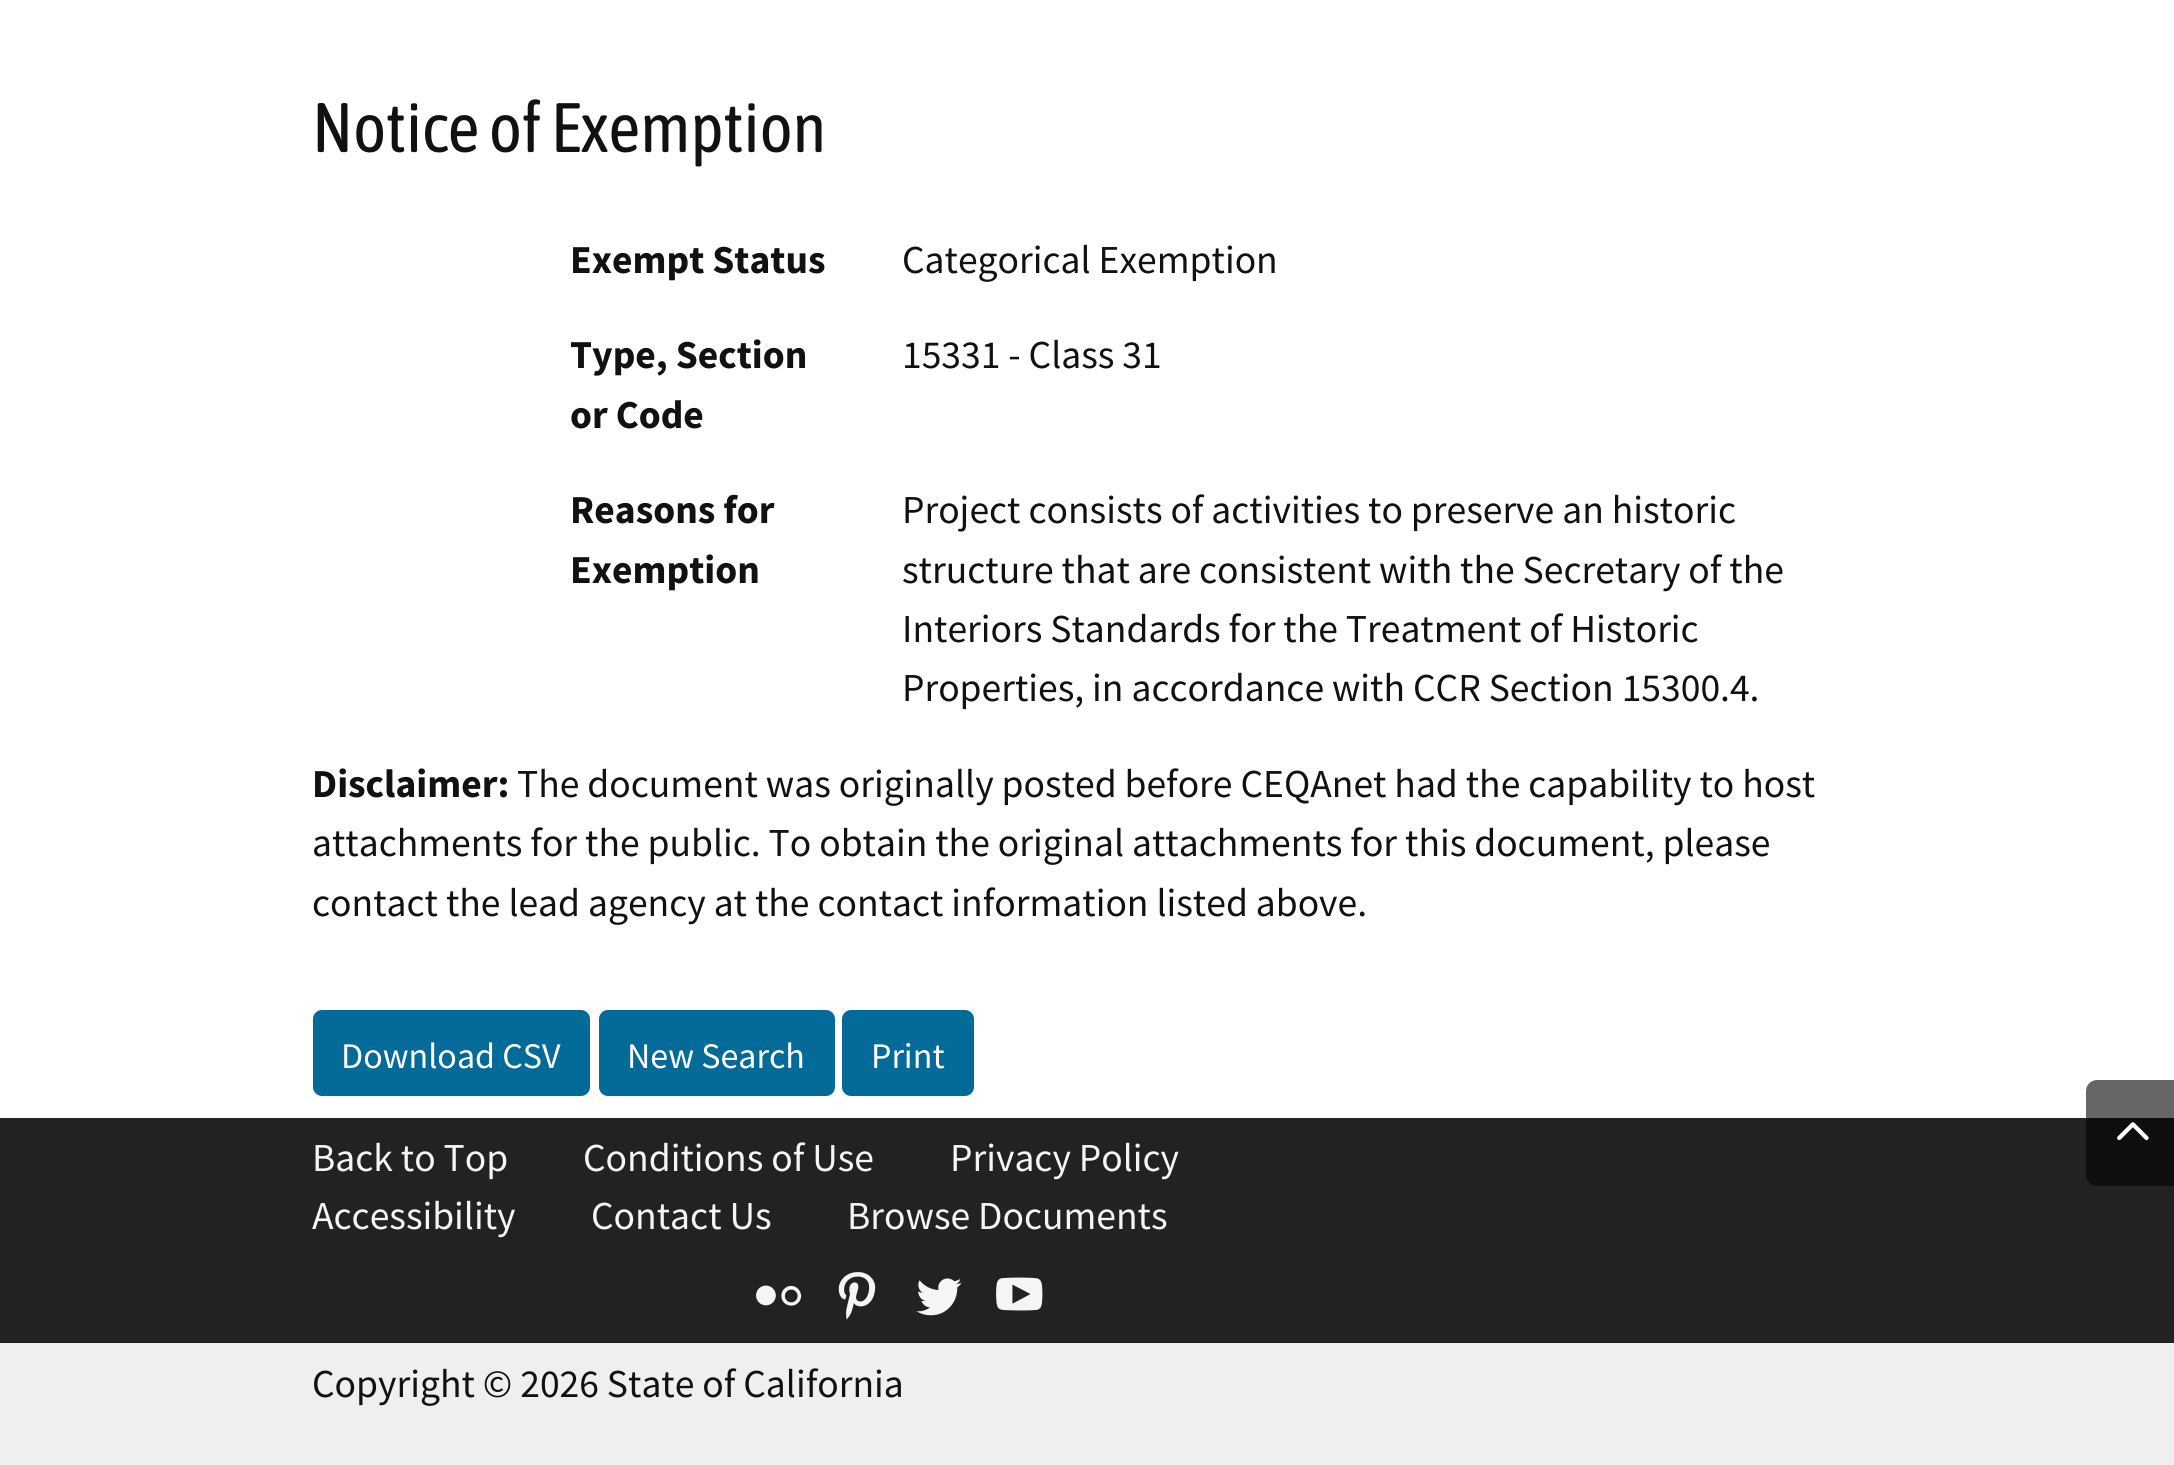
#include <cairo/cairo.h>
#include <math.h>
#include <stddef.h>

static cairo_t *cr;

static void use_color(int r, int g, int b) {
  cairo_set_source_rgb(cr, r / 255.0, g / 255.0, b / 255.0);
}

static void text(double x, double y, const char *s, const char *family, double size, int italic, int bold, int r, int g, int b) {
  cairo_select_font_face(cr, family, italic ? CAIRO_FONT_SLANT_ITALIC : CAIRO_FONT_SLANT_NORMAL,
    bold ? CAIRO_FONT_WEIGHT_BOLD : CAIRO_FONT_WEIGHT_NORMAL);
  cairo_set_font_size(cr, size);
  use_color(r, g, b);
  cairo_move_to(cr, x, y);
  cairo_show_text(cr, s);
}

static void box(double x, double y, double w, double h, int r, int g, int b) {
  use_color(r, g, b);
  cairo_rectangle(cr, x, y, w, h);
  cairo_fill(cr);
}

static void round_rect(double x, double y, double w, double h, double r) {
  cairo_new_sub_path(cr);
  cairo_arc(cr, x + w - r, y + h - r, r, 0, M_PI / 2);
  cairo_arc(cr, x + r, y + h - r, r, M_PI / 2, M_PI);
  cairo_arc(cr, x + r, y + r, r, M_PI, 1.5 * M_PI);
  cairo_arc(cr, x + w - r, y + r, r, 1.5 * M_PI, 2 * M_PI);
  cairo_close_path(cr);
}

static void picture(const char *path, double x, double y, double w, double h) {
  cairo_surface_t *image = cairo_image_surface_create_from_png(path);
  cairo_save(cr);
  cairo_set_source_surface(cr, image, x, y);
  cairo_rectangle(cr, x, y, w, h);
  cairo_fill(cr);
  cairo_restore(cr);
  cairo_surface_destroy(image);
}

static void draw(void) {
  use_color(255, 255, 255);
  cairo_paint(cr);
  use_color(4, 107, 153);
  round_rect(314, 1011, 275, 84, 8);
  cairo_fill_preserve(cr);
  cairo_stroke(cr);
  round_rect(600, 1011, 234, 84, 8);
  cairo_fill_preserve(cr);
  cairo_stroke(cr);
  round_rect(843, 1011, 130, 84, 8);
  cairo_fill_preserve(cr);
  cairo_stroke(cr);
  box(0, 1118, 2174, 225, 34, 34, 34);
  cairo_set_source_rgba(cr, 0, 0, 0, 0.6);
  cairo_new_path(cr);
  cairo_move_to(cr, 2097, 1080);
  cairo_line_to(cr, 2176, 1080);
  cairo_line_to(cr, 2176, 1186);
  cairo_line_to(cr, 2097, 1186);
  cairo_curve_to(cr, 2091, 1186, 2086, 1181, 2086, 1175);
  cairo_line_to(cr, 2086, 1091);
  cairo_curve_to(cr, 2086, 1085, 2091, 1080, 2097, 1080);
  cairo_close_path(cr);
  cairo_fill(cr);
  picture("img_01.png", 2117, 1122, 32, 19);
  picture("img_02.png", 756, 1285, 46, 21);
  picture("img_03.png", 838, 1272, 38, 48);
  picture("img_04.png", 916, 1278, 46, 38);
  picture("img_05.png", 996, 1277, 47, 34);
  box(0, 1343, 2174, 122, 239, 239, 239);
  text(312, 152, "Notice of Exemption", "Asap Condensed", 69.75, 0, 0, 17, 17, 17);
  text(570, 273, "Exempt Status", "Source Sans Pro", 39.6, 0, 1, 17, 17, 17);
  text(902, 273, "Categorical Exemption", "Source Sans Pro", 39.6, 0, 0, 17, 17, 17);
  text(570, 368, "Type, Section", "Source Sans Pro", 39.6, 0, 1, 17, 17, 17);
  text(570, 428, "or Code", "Source Sans Pro", 39.6, 0, 1, 17, 17, 17);
  text(902, 368, "15331 - Class 31", "Source Sans Pro", 39.6, 0, 0, 17, 17, 17);
  text(570, 523, "Reasons for", "Source Sans Pro", 39.6, 0, 1, 17, 17, 17);
  text(570, 583, "Exemption", "Source Sans Pro", 39.6, 0, 1, 17, 17, 17);
  text(902, 523, "Project consists of activities to preserve an historic", "Source Sans Pro", 39.6, 0, 0, 17, 17, 17);
  text(902, 583, "structure that are consistent with the Secretary of the", "Source Sans Pro", 39.6, 0, 0, 17, 17, 17);
  text(902, 642, "Interiors Standards for the Treatment of Historic", "Source Sans Pro", 39.6, 0, 0, 17, 17, 17);
  text(902, 701, "Properties, in accordance with CCR Section 15300.4.", "Source Sans Pro", 39.6, 0, 0, 17, 17, 17);
  text(312, 797, "Disclaimer:", "Source Sans Pro", 39.6, 0, 1, 17, 17, 17);
  text(517, 797, "The document was originally posted before CEQAnet had the capability to host", "Source Sans Pro", 39.6, 0, 0, 17, 17, 17);
  text(312, 856, "attachments for the public. To obtain the original attachments for this document, please", "Source Sans Pro", 39.6, 0, 0, 17, 17, 17);
  text(312, 916, "contact the lead agency at the contact information listed above.", "Source Sans Pro", 39.6, 0, 0, 17, 17, 17);
  text(341, 1068, "Download CSV", "Source Sans Pro", 36, 0, 0, 255, 255, 255);
  text(627, 1068, "New Search", "Source Sans Pro", 36, 0, 0, 255, 255, 255);
  text(871, 1068, "Print", "Source Sans Pro", 36, 0, 0, 255, 255, 255);
  text(312, 1171, "Back to Top", "Source Sans Pro", 39.6, 0, 0, 245, 245, 245);
  text(583, 1171, "Conditions of Use", "Source Sans Pro", 39.6, 0, 0, 245, 245, 245);
  text(950, 1171, "Privacy Policy", "Source Sans Pro", 39.6, 0, 0, 245, 245, 245);
  text(312, 1229, "Accessibility", "Source Sans Pro", 39.6, 0, 0, 245, 245, 245);
  text(591, 1229, "Contact Us", "Source Sans Pro", 39.6, 0, 0, 245, 245, 245);
  text(847, 1229, "Browse Documents", "Source Sans Pro", 39.6, 0, 0, 245, 245, 245);
  text(312, 1397, "Copyright © 2026 State of California", "Source Sans Pro", 39.6, 0, 0, 17, 17, 17);
}

int main(void) {
  cairo_surface_t *surface = cairo_image_surface_create(CAIRO_FORMAT_RGB24, 2174, 1465);
  cr = cairo_create(surface);
  cairo_font_options_t *options = cairo_font_options_create();
  cairo_font_options_set_hint_metrics(options, CAIRO_HINT_METRICS_OFF);
  cairo_font_options_set_hint_style(options, CAIRO_HINT_STYLE_NONE);
  cairo_set_font_options(cr, options);
  cairo_set_miter_limit(cr, 4);
  draw();
  cairo_surface_write_to_png(surface, "out.png");
  cairo_font_options_destroy(options);
  cairo_destroy(cr);
  cairo_surface_destroy(surface);
  return 0;
}
